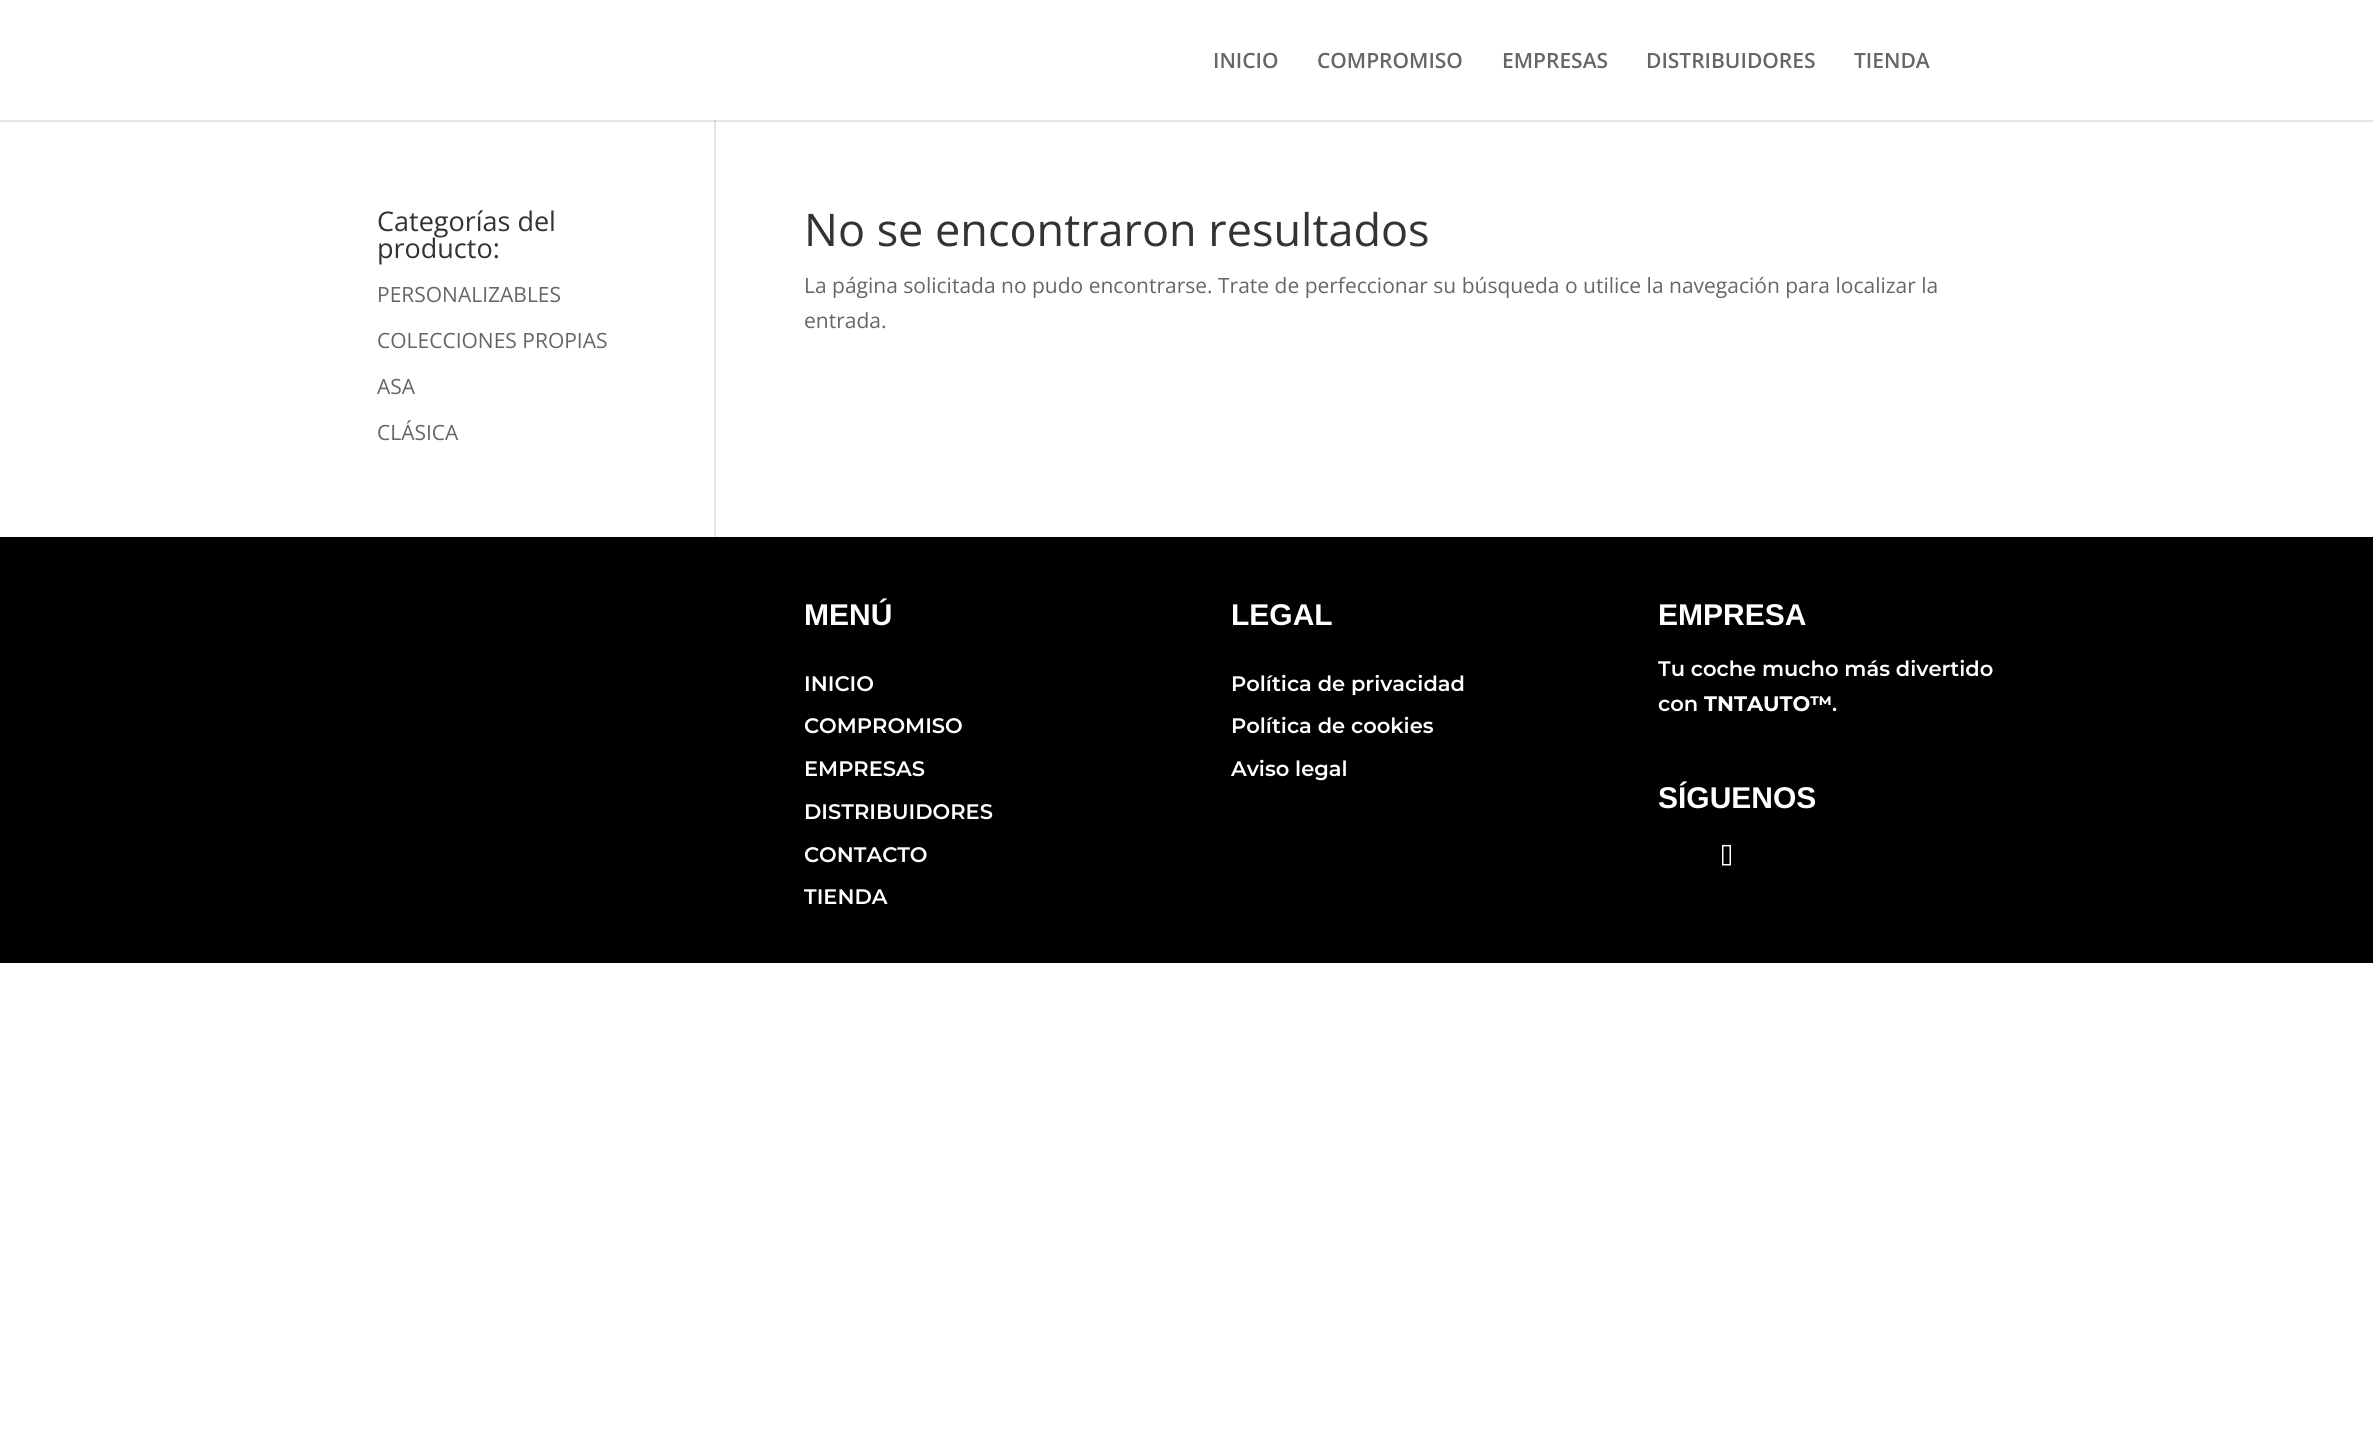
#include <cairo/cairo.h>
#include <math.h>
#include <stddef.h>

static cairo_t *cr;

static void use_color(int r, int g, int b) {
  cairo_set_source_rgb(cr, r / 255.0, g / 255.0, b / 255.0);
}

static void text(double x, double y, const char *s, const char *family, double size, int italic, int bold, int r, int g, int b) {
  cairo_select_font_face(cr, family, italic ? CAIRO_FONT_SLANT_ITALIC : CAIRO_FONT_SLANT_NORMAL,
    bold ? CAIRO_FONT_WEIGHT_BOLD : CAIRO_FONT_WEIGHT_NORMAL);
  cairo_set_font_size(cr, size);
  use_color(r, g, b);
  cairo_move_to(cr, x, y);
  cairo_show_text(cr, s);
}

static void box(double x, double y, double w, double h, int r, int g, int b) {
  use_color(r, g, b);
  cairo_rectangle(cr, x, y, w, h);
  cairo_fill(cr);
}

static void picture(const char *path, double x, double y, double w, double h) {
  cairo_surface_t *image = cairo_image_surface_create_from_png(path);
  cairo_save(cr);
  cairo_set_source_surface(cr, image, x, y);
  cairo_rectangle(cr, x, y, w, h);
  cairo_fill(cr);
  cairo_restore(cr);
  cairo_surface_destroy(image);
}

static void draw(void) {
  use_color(255, 255, 255);
  cairo_paint(cr);
  box(0, 120, 2373, 2, 230, 230, 230);
  box(714, 120, 2, 417, 226, 226, 226);
  box(714, 120, 2, 2, 203, 203, 203);
  box(0, 537, 2373, 426, 0, 0, 0);
  picture("img_01.png", 1722, 844, 9, 22);
  text(1213, 68, "INICIO", "Open Sans SemiBold", 21, 0, 0, 102, 102, 102);
  text(1317, 68, "COMPROMISO", "Open Sans SemiBold", 21, 0, 0, 102, 102, 102);
  text(1502, 68, "EMPRESAS", "Open Sans SemiBold", 21, 0, 0, 102, 102, 102);
  text(1646, 68, "DISTRIBUIDORES", "Open Sans SemiBold", 21, 0, 0, 102, 102, 102);
  text(1854, 68, "TIENDA", "Open Sans SemiBold", 21, 0, 0, 102, 102, 102);
  text(377, 231, "Categorías del", "Open Sans", 27, 0, 0, 51, 51, 51);
  text(377, 258, "producto:", "Open Sans", 27, 0, 0, 51, 51, 51);
  text(377, 302, "PERSONALIZABLES", "Open Sans", 21, 0, 0, 102, 102, 102);
  text(377, 348, "COLECCIONES PROPIAS", "Open Sans", 21, 0, 0, 102, 102, 102);
  text(377, 394, "ASA", "Open Sans", 21, 0, 0, 102, 102, 102);
  text(377, 440, "CLÁSICA", "Open Sans", 21, 0, 0, 102, 102, 102);
  text(804, 246, "No se encontraron resultados", "Open Sans", 45, 0, 0, 51, 51, 51);
  text(804, 293, "La página solicitada no pudo encontrarse. Trate de perfeccionar su búsqueda o utilice la navegación para localizar la", "Open Sans", 21, 0, 0, 102, 102, 102);
  text(804, 328, "entrada.", "Open Sans", 21, 0, 0, 102, 102, 102);
  text(804, 625, "MENÚ", "Liberation Sans", 30, 0, 1, 255, 255, 255);
  text(804, 691, "INICIO", "Montserrat SemiBold", 21, 0, 0, 255, 255, 255);
  text(804, 733, "COMPROMISO", "Montserrat SemiBold", 21, 0, 0, 255, 255, 255);
  text(804, 776, "EMPRESAS", "Montserrat SemiBold", 21, 0, 0, 255, 255, 255);
  text(804, 819, "DISTRIBUIDORES", "Montserrat SemiBold", 21, 0, 0, 255, 255, 255);
  text(804, 862, "CONTACTO", "Montserrat SemiBold", 21, 0, 0, 255, 255, 255);
  text(804, 904, "TIENDA", "Montserrat SemiBold", 21, 0, 0, 255, 255, 255);
  text(1231, 625, "LEGAL", "Liberation Sans", 30, 0, 1, 255, 255, 255);
  text(1231, 691, "Política de privacidad", "Montserrat SemiBold", 21, 0, 0, 255, 255, 255);
  text(1231, 733, "Política de cookies", "Montserrat SemiBold", 21, 0, 0, 255, 255, 255);
  text(1231, 776, "Aviso legal", "Montserrat SemiBold", 21, 0, 0, 255, 255, 255);
  text(1658, 625, "EMPRESA", "Liberation Sans", 30, 0, 1, 255, 255, 255);
  text(1658, 676, "Tu coche mucho más divertido", "Montserrat SemiBold", 21, 0, 0, 255, 255, 255);
  text(1658, 711, "con", "Montserrat SemiBold", 21, 0, 0, 255, 255, 255);
  text(1704, 711, "TNTAUTO™", "Montserrat", 21, 0, 1, 255, 255, 255);
  text(1832, 711, ".", "Montserrat SemiBold", 21, 0, 0, 255, 255, 255);
  text(1658, 808, "SÍGUENOS", "Liberation Sans", 30, 0, 1, 255, 255, 255);
}

int main(void) {
  cairo_surface_t *surface = cairo_image_surface_create(CAIRO_FORMAT_RGB24, 2373, 1433);
  cr = cairo_create(surface);
  cairo_font_options_t *options = cairo_font_options_create();
  cairo_font_options_set_hint_metrics(options, CAIRO_HINT_METRICS_OFF);
  cairo_font_options_set_hint_style(options, CAIRO_HINT_STYLE_NONE);
  cairo_set_font_options(cr, options);
  cairo_set_miter_limit(cr, 4);
  draw();
  cairo_surface_write_to_png(surface, "out.png");
  cairo_font_options_destroy(options);
  cairo_destroy(cr);
  cairo_surface_destroy(surface);
  return 0;
}
